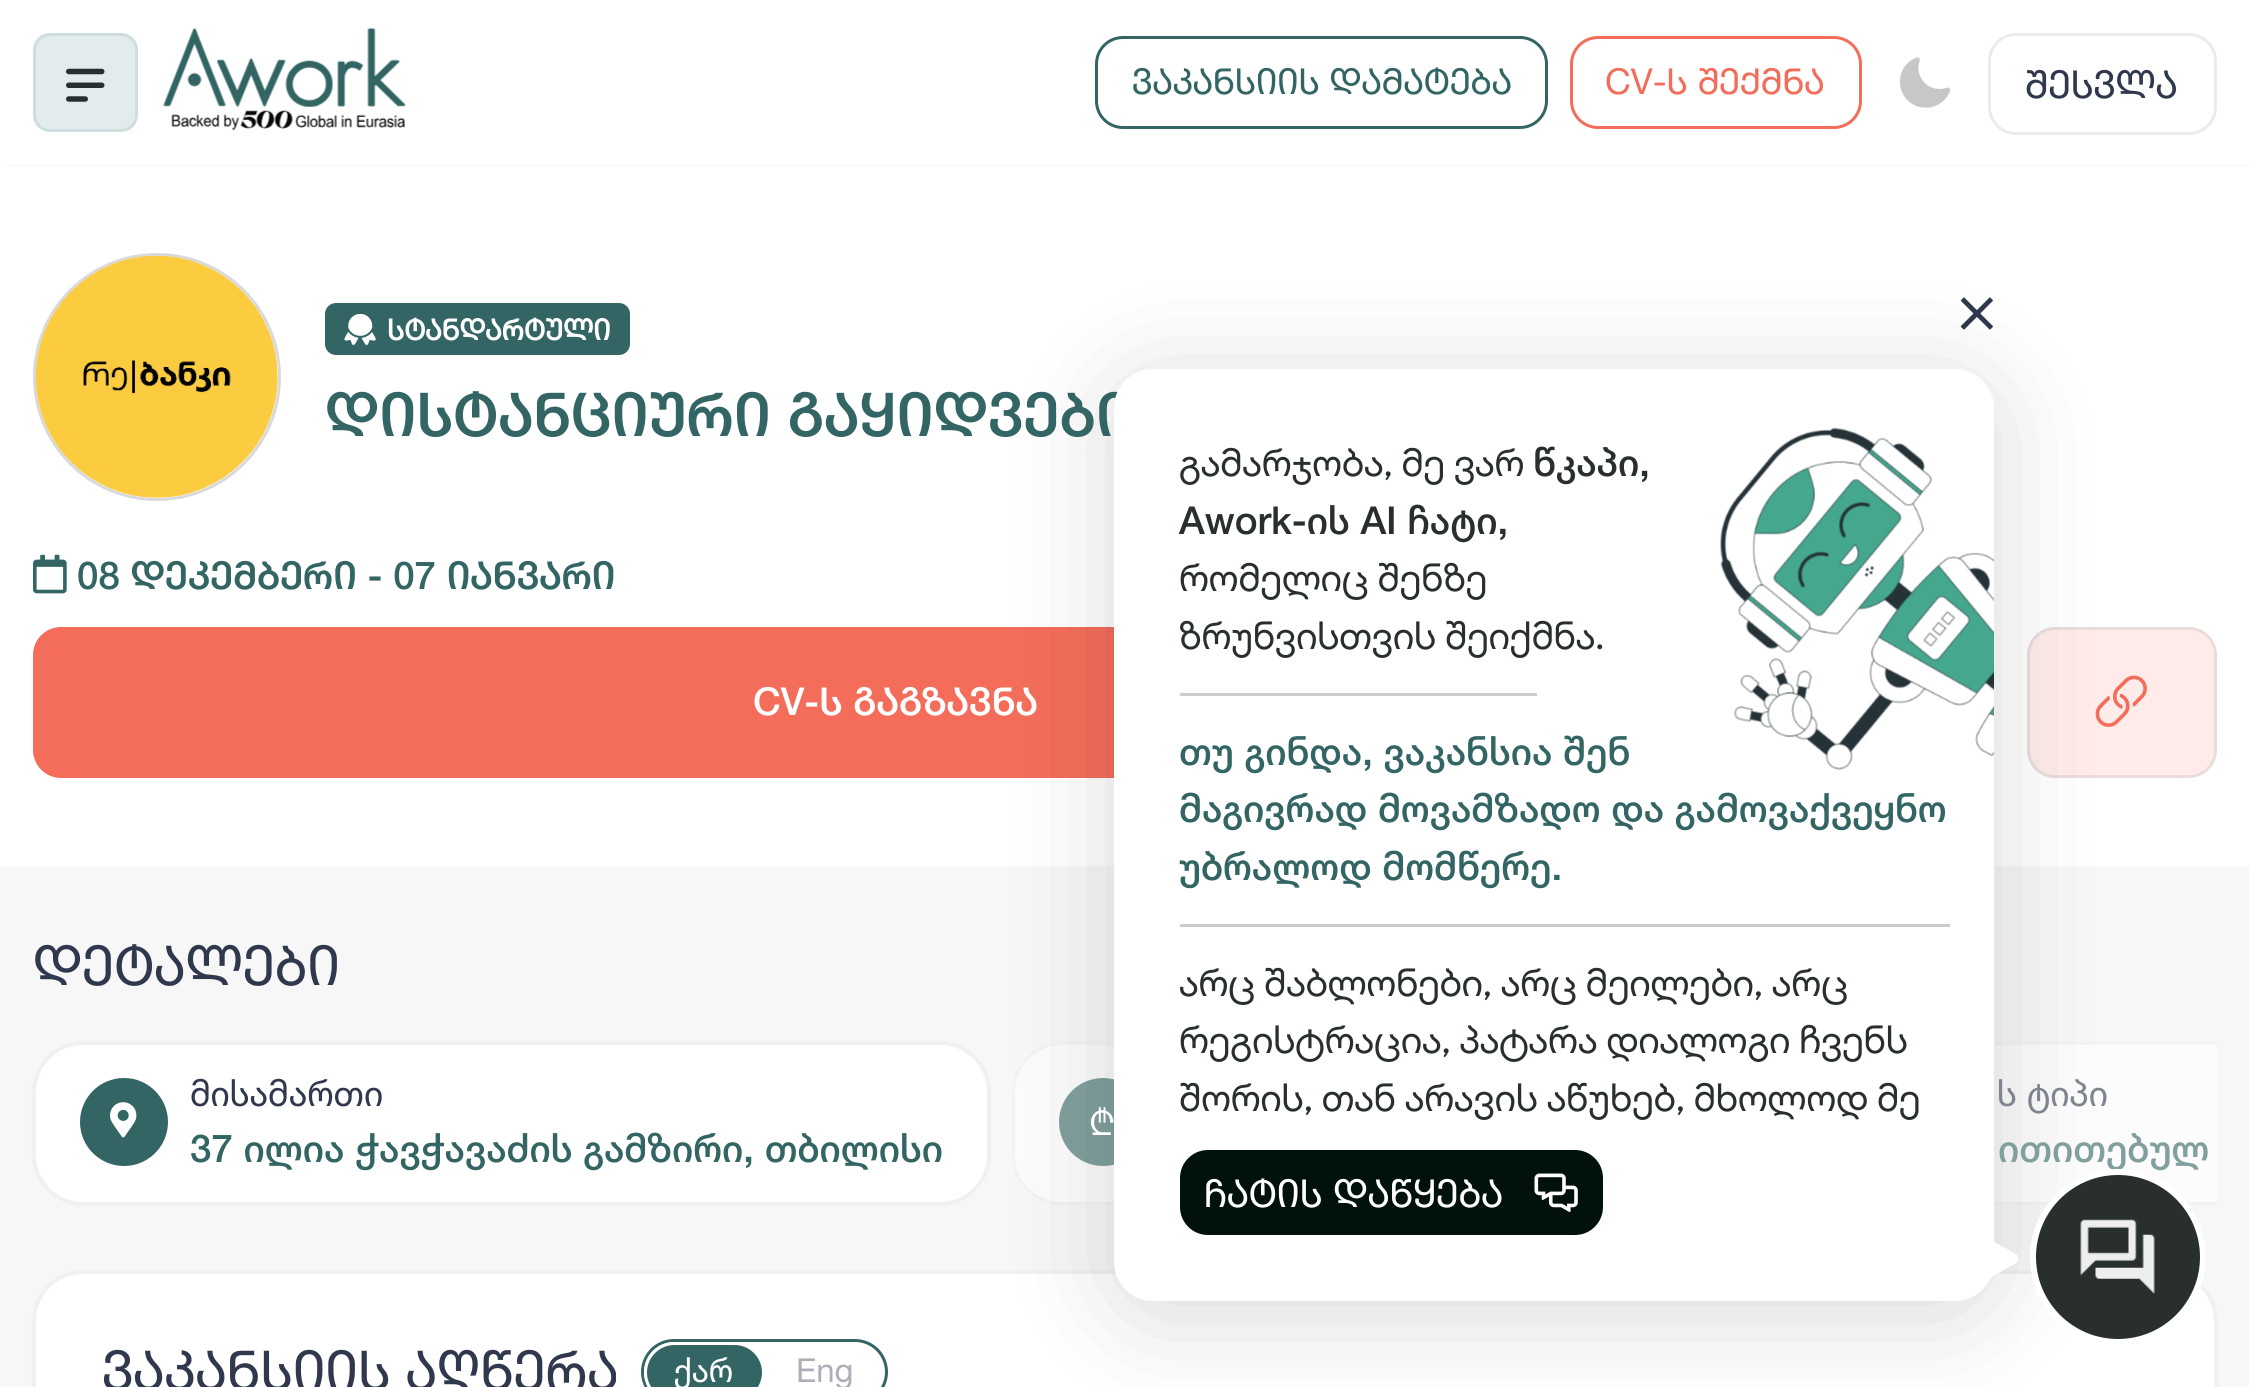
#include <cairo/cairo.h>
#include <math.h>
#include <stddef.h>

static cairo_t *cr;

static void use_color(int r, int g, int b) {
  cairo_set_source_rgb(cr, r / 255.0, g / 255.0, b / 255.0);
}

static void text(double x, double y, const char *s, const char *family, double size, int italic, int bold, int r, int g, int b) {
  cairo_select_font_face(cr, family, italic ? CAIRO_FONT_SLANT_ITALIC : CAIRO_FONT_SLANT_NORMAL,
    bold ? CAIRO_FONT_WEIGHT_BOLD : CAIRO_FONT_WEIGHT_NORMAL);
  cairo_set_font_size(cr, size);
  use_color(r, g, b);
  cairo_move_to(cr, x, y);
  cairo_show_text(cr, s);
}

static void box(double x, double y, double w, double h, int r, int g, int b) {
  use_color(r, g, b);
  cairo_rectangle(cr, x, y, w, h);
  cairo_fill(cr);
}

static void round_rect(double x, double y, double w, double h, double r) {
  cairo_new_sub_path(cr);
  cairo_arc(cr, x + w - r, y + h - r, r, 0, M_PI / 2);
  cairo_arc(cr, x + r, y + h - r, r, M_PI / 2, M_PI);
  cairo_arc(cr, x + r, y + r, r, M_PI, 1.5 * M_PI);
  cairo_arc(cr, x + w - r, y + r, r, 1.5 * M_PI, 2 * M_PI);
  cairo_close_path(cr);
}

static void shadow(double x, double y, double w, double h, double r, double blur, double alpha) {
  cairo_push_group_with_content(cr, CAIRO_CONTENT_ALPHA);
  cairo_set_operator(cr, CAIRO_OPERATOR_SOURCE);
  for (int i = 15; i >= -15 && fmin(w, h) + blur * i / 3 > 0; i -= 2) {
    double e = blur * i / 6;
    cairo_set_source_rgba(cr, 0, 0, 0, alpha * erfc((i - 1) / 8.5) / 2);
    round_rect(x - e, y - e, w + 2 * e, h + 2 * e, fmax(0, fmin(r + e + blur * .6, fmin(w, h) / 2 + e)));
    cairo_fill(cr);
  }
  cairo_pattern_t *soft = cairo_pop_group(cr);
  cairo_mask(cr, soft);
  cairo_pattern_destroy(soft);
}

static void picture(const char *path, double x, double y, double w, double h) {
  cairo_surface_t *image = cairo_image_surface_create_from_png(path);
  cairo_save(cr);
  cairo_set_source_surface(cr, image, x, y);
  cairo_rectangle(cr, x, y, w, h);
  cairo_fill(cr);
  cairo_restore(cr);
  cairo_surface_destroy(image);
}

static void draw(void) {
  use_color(247, 247, 247);
  cairo_paint(cr);
  box(0, 165, 2249, 701, 255, 255, 255);
  use_color(10, 22, 70);
  shadow(0, 0, 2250, 165, 0, 1.5, 0.06);
  box(0, 0, 2249, 165, 255, 255, 255);
  use_color(227, 236, 236);
  round_rect(34.5, 34.5, 102, 96, 15.5);
  cairo_fill_preserve(cr);
  use_color(206, 222, 222);
  cairo_set_line_width(cr, 3);
  cairo_stroke(cr);
  picture("img_01.png", 66, 68, 39, 34);
  picture("img_02.png", 163, 27, 243, 103);
  round_rect(1096.5, 37.5, 450, 90, 26.5);
  use_color(50, 101, 99);
  cairo_stroke(cr);
  round_rect(1571.5, 37.5, 289, 90, 26.5);
  use_color(244, 109, 91);
  cairo_stroke(cr);
  picture("img_03.png", 1899, 57, 52, 51);
  round_rect(1989.5, 34.5, 226, 99, 26.5);
  use_color(235, 235, 235);
  cairo_stroke(cr);
  cairo_arc(cr, 157, 377, 122.5, 0, 2 * M_PI);
  use_color(217, 217, 217);
  cairo_stroke(cr);
  picture("img_04.png", 35, 255, 243, 243);
  use_color(50, 101, 99);
  round_rect(325, 303, 305, 52, 11);
  cairo_fill(cr);
  picture("img_05.png", 344, 314, 32, 31);
  picture("img_06.png", 33, 554, 34, 40);
  use_color(244, 109, 91);
  round_rect(34.5, 628.5, 1721, 148, 26.5);
  cairo_fill_preserve(cr);
  cairo_stroke(cr);
  use_color(255, 236, 234);
  round_rect(2028.5, 628.5, 187, 148, 26.5);
  cairo_fill_preserve(cr);
  use_color(234, 220, 219);
  cairo_stroke(cr);
  picture("img_07.png", 2095, 675, 52, 52);
  use_color(10, 22, 70);
  shadow(33, 1042, 957, 163, 50, 1.5, 0.06);
  use_color(255, 255, 255);
  round_rect(34.5, 1043.5, 954, 160, 48.5);
  cairo_fill_preserve(cr);
  use_color(240, 240, 240);
  cairo_stroke(cr);
  use_color(50, 101, 99);
  cairo_arc(cr, 124, 1122, 44, 0, 2 * M_PI);
  cairo_fill(cr);
  picture("img_08.png", 110, 1102, 27, 36);
  use_color(252, 252, 252);
  round_rect(1013.5, 1043.5, 619, 160, 48.5);
  cairo_fill_preserve(cr);
  use_color(243, 243, 243);
  cairo_stroke(cr);
  use_color(129, 159, 158);
  cairo_arc(cr, 1103, 1122, 44, 0, 2 * M_PI);
  cairo_fill(cr);
  box(1994, 1045, 223, 157, 252, 252, 252);
  cairo_save(cr);
  cairo_rectangle(cr, 33, 1042, 2184, 185);
  cairo_clip(cr);
  round_rect(1657.5, 1043.5, 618, 160, 48.5);
  use_color(243, 243, 243);
  cairo_stroke(cr);
  cairo_restore(cr);
  use_color(10, 22, 70);
  shadow(33, 1271, 2184, 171, 50, 1.5, 0.06);
  use_color(255, 255, 255);
  round_rect(34.5, 1272.5, 2181, 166, 48.5);
  cairo_fill_preserve(cr);
  use_color(240, 240, 240);
  cairo_stroke(cr);
  round_rect(642.5, 1340.5, 244, 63, 31.5);
  use_color(50, 101, 99);
  cairo_stroke(cr);
  round_rect(645.5, 1343.5, 118, 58, 29);
  cairo_fill_preserve(cr);
  use_color(255, 255, 255);
  cairo_stroke(cr);
  picture("img_09.png", 1960, 297, 33, 33);
  use_color(15, 15, 15);
  shadow(1114, 382, 880, 933, 39, 55, 0.16);
  text(1132, 94, "ვაკანსიის დამატება", "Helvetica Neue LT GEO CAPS", 35.75, 0, 0, 50, 101, 99);
  text(1605, 94, "CV-ს შექმნა", "Helvetica Neue LT GEO CAPS", 35.75, 0, 0, 244, 109, 91);
  text(2025, 98, "შესვლა", "Helvetica Neue LT GEO CAPS", 38.5, 0, 0, 47, 56, 77);
  text(387, 340, "სტანდარტული", "Helvetica Neue LT GEO CAPS", 29, 0, 1, 255, 255, 255);
  text(325, 436, "დისტანციური გაყიდვები", "Helvetica Neue LT GEO CAPS Medium", 60.5, 0, 0, 50, 101, 99);
  text(77, 589, "08 დეკემბერი - 07 იანვარი", "Helvetica Neue LT GEO CAPS Medium", 38.5, 0, 0, 50, 101, 99);
  text(753, 715, "CV-ს გაგზავნა", "Helvetica Neue LT GEO CAPS Medium", 38.5, 0, 0, 255, 255, 255);
  text(33, 985, "დეტალები", "Helvetica Neue LT GEO CAPS", 55, 0, 0, 47, 56, 77);
  text(190, 1106, "მისამართი", "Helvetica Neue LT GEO", 35.75, 0, 0, 47, 56, 77);
  text(190, 1162, "37 ილია ჭავჭავაძის გამზირი, თბილისი", "Helvetica Neue LT GEO Medium", 38.5, 0, 0, 50, 101, 99);
  text(1089, 1135, "₾", "Helvetica Neue LT GEO", 35, 0, 0, 255, 255, 255);
  text(1997, 1106, "ს ტიპი", "Helvetica Neue LT GEO", 35.75, 0, 0, 127, 132, 145);
  text(1998, 1162, "ითითებულ", "Helvetica Neue LT GEO Medium", 38.5, 0, 0, 129, 159, 158);
  text(102, 1390, "ვაკანსიის აღწერა", "Helvetica Neue LT GEO CAPS", 55, 0, 0, 47, 56, 77);
  text(674, 1382, "ქარ", "Helvetica Neue LT GEO", 33, 0, 0, 255, 255, 255);
  text(796, 1382, "Eng", "Helvetica Neue LT GEO", 33, 0, 0, 172, 175, 184);
  use_color(255, 255, 255);
  round_rect(1114, 369, 880, 932, 39);
  cairo_fill(cr);
  text(1179, 476, "გამარჯობა, მე ვარ", "Google Sans", 38.5, 0, 0, 41, 46, 46);
  text(1533, 476, "წკაპი,", "Helvetica Neue LT GEO Medium", 38.5, 0, 0, 41, 46, 46);
  picture("img_10.png", 1720, 427, 274, 343);
  text(1179, 534, "Awork-ის AI ჩატი,", "Helvetica Neue LT GEO Medium", 38.5, 0, 0, 41, 46, 46);
  text(1179, 591, "რომელიც შენზე", "Google Sans", 38.5, 0, 0, 41, 46, 46);
  text(1179, 649, "ზრუნვისთვის შეიქმნა.", "Google Sans", 38.5, 0, 0, 41, 46, 46);
  box(1180, 693, 357, 3, 202, 203, 203);
  text(1179, 765, "თუ გინდა, ვაკანსია შენ", "Helvetica Neue LT GEO Medium", 38.5, 0, 0, 50, 101, 99);
  text(1179, 822, "მაგივრად მოვამზადო და გამოვაქვეყნო", "Helvetica Neue LT GEO Medium", 38.5, 0, 0, 50, 101, 99);
  text(1179, 880, "უბრალოდ მომწერე.", "Helvetica Neue LT GEO Medium", 38.5, 0, 0, 50, 101, 99);
  box(1180, 924, 770, 3, 202, 203, 203);
  text(1179, 996, "არც შაბლონები, არც მეილები, არც", "Google Sans", 38.5, 0, 0, 41, 46, 46);
  text(1179, 1053, "რეგისტრაცია, პატარა დიალოგი ჩვენს", "Google Sans", 38.5, 0, 0, 41, 46, 46);
  text(1179, 1111, "შორის, თან არავის აწუხებ, მხოლოდ მე", "Google Sans", 38.5, 0, 0, 41, 46, 46);
  use_color(1, 17, 14);
  round_rect(1181.5, 1151.5, 420, 82, 26.5);
  cairo_fill_preserve(cr);
  cairo_stroke(cr);
  text(1204, 1207, "ჩატის დაწყება", "Helvetica Neue LT GEO CAPS", 38.5, 0, 0, 255, 255, 255);
  picture("img_11.png", 1534, 1173, 44, 39);
  cairo_new_path(cr);
  cairo_move_to(cr, 2016, 1263);
  cairo_line_to(cr, 1971, 1289);
  cairo_curve_to(cr, 1970, 1290, 1968, 1290, 1966, 1289);
  cairo_curve_to(cr, 1964, 1288, 1964, 1287, 1964, 1285);
  cairo_line_to(cr, 1964, 1233);
  cairo_curve_to(cr, 1964, 1231, 1964, 1230, 1966, 1229);
  cairo_curve_to(cr, 1968, 1228, 1970, 1228, 1971, 1229);
  cairo_line_to(cr, 2016, 1254);
  cairo_curve_to(cr, 2018, 1255, 2018, 1257, 2018, 1259);
  cairo_curve_to(cr, 2018, 1261, 2018, 1262, 2016, 1263);
  cairo_close_path(cr);
  cairo_fill(cr);
  use_color(41, 46, 46);
  cairo_arc(cr, 2118, 1257, 85, 0, 2 * M_PI);
  cairo_fill_preserve(cr);
  use_color(255, 255, 255);
  cairo_set_line_width(cr, 6);
  cairo_stroke(cr);
  picture("img_12.png", 2080, 1219, 75, 75);
}

int main(void) {
  cairo_surface_t *surface = cairo_image_surface_create(CAIRO_FORMAT_RGB24, 2249, 1387);
  cr = cairo_create(surface);
  cairo_font_options_t *options = cairo_font_options_create();
  cairo_font_options_set_hint_metrics(options, CAIRO_HINT_METRICS_OFF);
  cairo_font_options_set_hint_style(options, CAIRO_HINT_STYLE_NONE);
  cairo_set_font_options(cr, options);
  cairo_set_miter_limit(cr, 4);
  draw();
  cairo_surface_write_to_png(surface, "out.png");
  cairo_font_options_destroy(options);
  cairo_destroy(cr);
  cairo_surface_destroy(surface);
  return 0;
}
